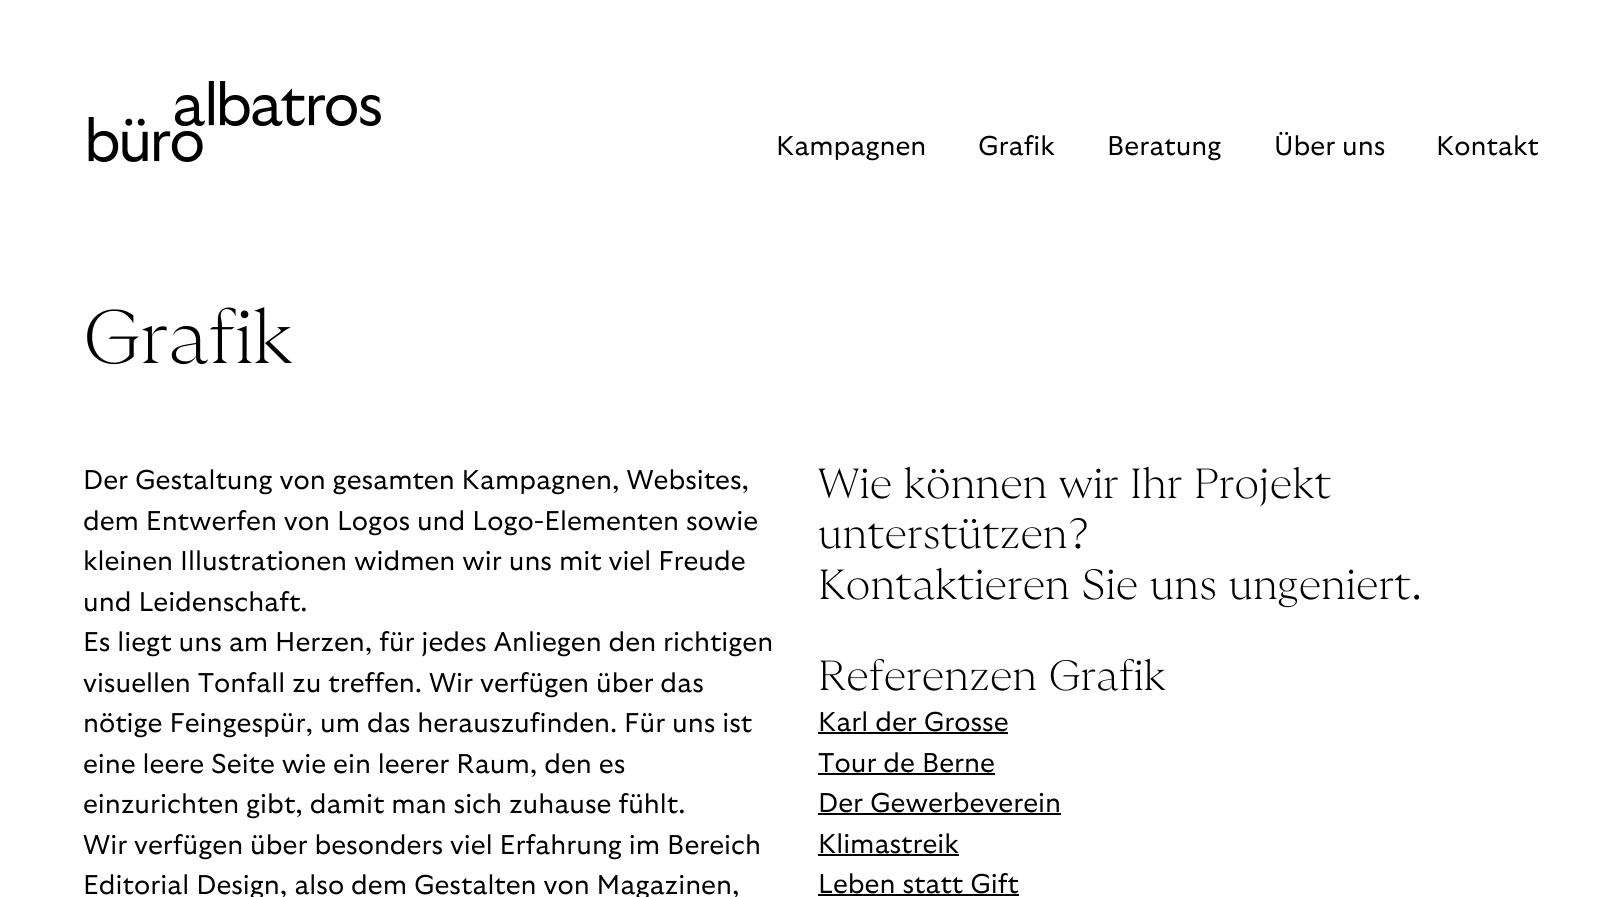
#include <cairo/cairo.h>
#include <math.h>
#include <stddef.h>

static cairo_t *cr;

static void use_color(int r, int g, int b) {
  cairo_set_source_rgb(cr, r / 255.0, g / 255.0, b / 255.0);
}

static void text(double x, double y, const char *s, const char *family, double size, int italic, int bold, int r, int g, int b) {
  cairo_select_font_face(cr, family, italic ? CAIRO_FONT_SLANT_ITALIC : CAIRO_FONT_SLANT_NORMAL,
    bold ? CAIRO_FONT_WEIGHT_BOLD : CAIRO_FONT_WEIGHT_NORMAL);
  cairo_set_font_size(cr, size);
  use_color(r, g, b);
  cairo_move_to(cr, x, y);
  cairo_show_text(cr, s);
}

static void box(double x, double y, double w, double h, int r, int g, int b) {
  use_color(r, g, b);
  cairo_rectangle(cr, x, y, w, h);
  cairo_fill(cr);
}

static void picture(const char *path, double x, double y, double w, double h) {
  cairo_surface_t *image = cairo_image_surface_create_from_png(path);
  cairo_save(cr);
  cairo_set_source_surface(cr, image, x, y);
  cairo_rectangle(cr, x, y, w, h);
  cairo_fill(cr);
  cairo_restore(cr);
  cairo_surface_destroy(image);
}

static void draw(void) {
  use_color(255, 255, 255);
  cairo_paint(cr);
  picture("img_01.png", 88, 81, 293, 81);
  box(818, 732, 190, 2, 0, 0, 0);
  box(818, 773, 177, 2, 0, 0, 0);
  box(818, 813, 243, 2, 0, 0, 0);
  box(818, 854, 141, 2, 0, 0, 0);
  box(818, 894, 201, 2, 0, 0, 0);
  text(776, 155, "Kampagnen", "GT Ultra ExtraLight", 27, 0, 0, 0, 0, 0);
  text(978, 155, "Grafik", "GT Ultra ExtraLight", 27, 0, 0, 0, 0, 0);
  text(1107, 155, "Beratung", "GT Ultra ExtraLight", 27, 0, 0, 0, 0, 0);
  text(1274, 155, "Über uns", "GT Ultra ExtraLight", 27, 0, 0, 0, 0, 0);
  text(1436, 155, "Kontakt", "GT Ultra ExtraLight", 27, 0, 0, 0, 0, 0);
  text(83, 363, "Grafik", "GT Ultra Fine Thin", 75, 0, 0, 0, 0, 0);
  text(83, 489, "Der Gestaltung von gesamten Kampagnen, Websites,", "GT Ultra ExtraLight", 27, 0, 0, 0, 0, 0);
  text(83, 530, "dem Entwerfen von Logos und Logo-Elementen sowie", "GT Ultra ExtraLight", 27, 0, 0, 0, 0, 0);
  text(83, 570, "kleinen Illustrationen widmen wir uns mit viel Freude", "GT Ultra ExtraLight", 27, 0, 0, 0, 0, 0);
  text(83, 611, "und Leidenschaft.", "GT Ultra ExtraLight", 27, 0, 0, 0, 0, 0);
  text(83, 651, "Es liegt uns am Herzen, für jedes Anliegen den richtigen", "GT Ultra ExtraLight", 27, 0, 0, 0, 0, 0);
  text(83, 692, "visuellen Tonfall zu treffen. Wir verfügen über das", "GT Ultra ExtraLight", 27, 0, 0, 0, 0, 0);
  text(83, 732, "nötige Feingespür, um das herauszufinden. Für uns ist", "GT Ultra ExtraLight", 27, 0, 0, 0, 0, 0);
  text(83, 773, "eine leere Seite wie ein leerer Raum, den es", "GT Ultra ExtraLight", 27, 0, 0, 0, 0, 0);
  text(83, 813, "einzurichten gibt, damit man sich zuhause fühlt.", "GT Ultra ExtraLight", 27, 0, 0, 0, 0, 0);
  text(83, 854, "Wir verfügen über besonders viel Erfahrung im Bereich", "GT Ultra ExtraLight", 27, 0, 0, 0, 0, 0);
  text(83, 894, "Editorial Design, also dem Gestalten von Magazinen,", "GT Ultra ExtraLight", 27, 0, 0, 0, 0, 0);
  text(818, 498, "Wie können wir Ihr Projekt", "GT Ultra Fine Thin", 42, 0, 0, 0, 0, 0);
  text(818, 548, "unterstützen?", "GT Ultra Fine Thin", 42, 0, 0, 0, 0, 0);
  text(818, 599, "Kontaktieren Sie uns ungeniert.", "GT Ultra Fine Thin", 42, 0, 0, 0, 0, 0);
  text(818, 690, "Referenzen Grafik", "GT Ultra Fine Thin", 42, 0, 0, 0, 0, 0);
  text(818, 731, "Karl der Grosse", "GT Ultra ExtraLight", 27, 0, 0, 0, 0, 0);
  text(818, 772, "Tour de Berne", "GT Ultra ExtraLight", 27, 0, 0, 0, 0, 0);
  text(818, 812, "Der Gewerbeverein", "GT Ultra ExtraLight", 27, 0, 0, 0, 0, 0);
  text(818, 853, "Klimastreik", "GT Ultra ExtraLight", 27, 0, 0, 0, 0, 0);
  text(818, 893, "Leben statt Gift", "GT Ultra ExtraLight", 27, 0, 0, 0, 0, 0);
}

int main(void) {
  cairo_surface_t *surface = cairo_image_surface_create(CAIRO_FORMAT_RGB24, 1605, 897);
  cr = cairo_create(surface);
  cairo_font_options_t *options = cairo_font_options_create();
  cairo_font_options_set_hint_metrics(options, CAIRO_HINT_METRICS_OFF);
  cairo_font_options_set_hint_style(options, CAIRO_HINT_STYLE_NONE);
  cairo_set_font_options(cr, options);
  cairo_set_miter_limit(cr, 4);
  draw();
  cairo_surface_write_to_png(surface, "out.png");
  cairo_font_options_destroy(options);
  cairo_destroy(cr);
  cairo_surface_destroy(surface);
  return 0;
}
